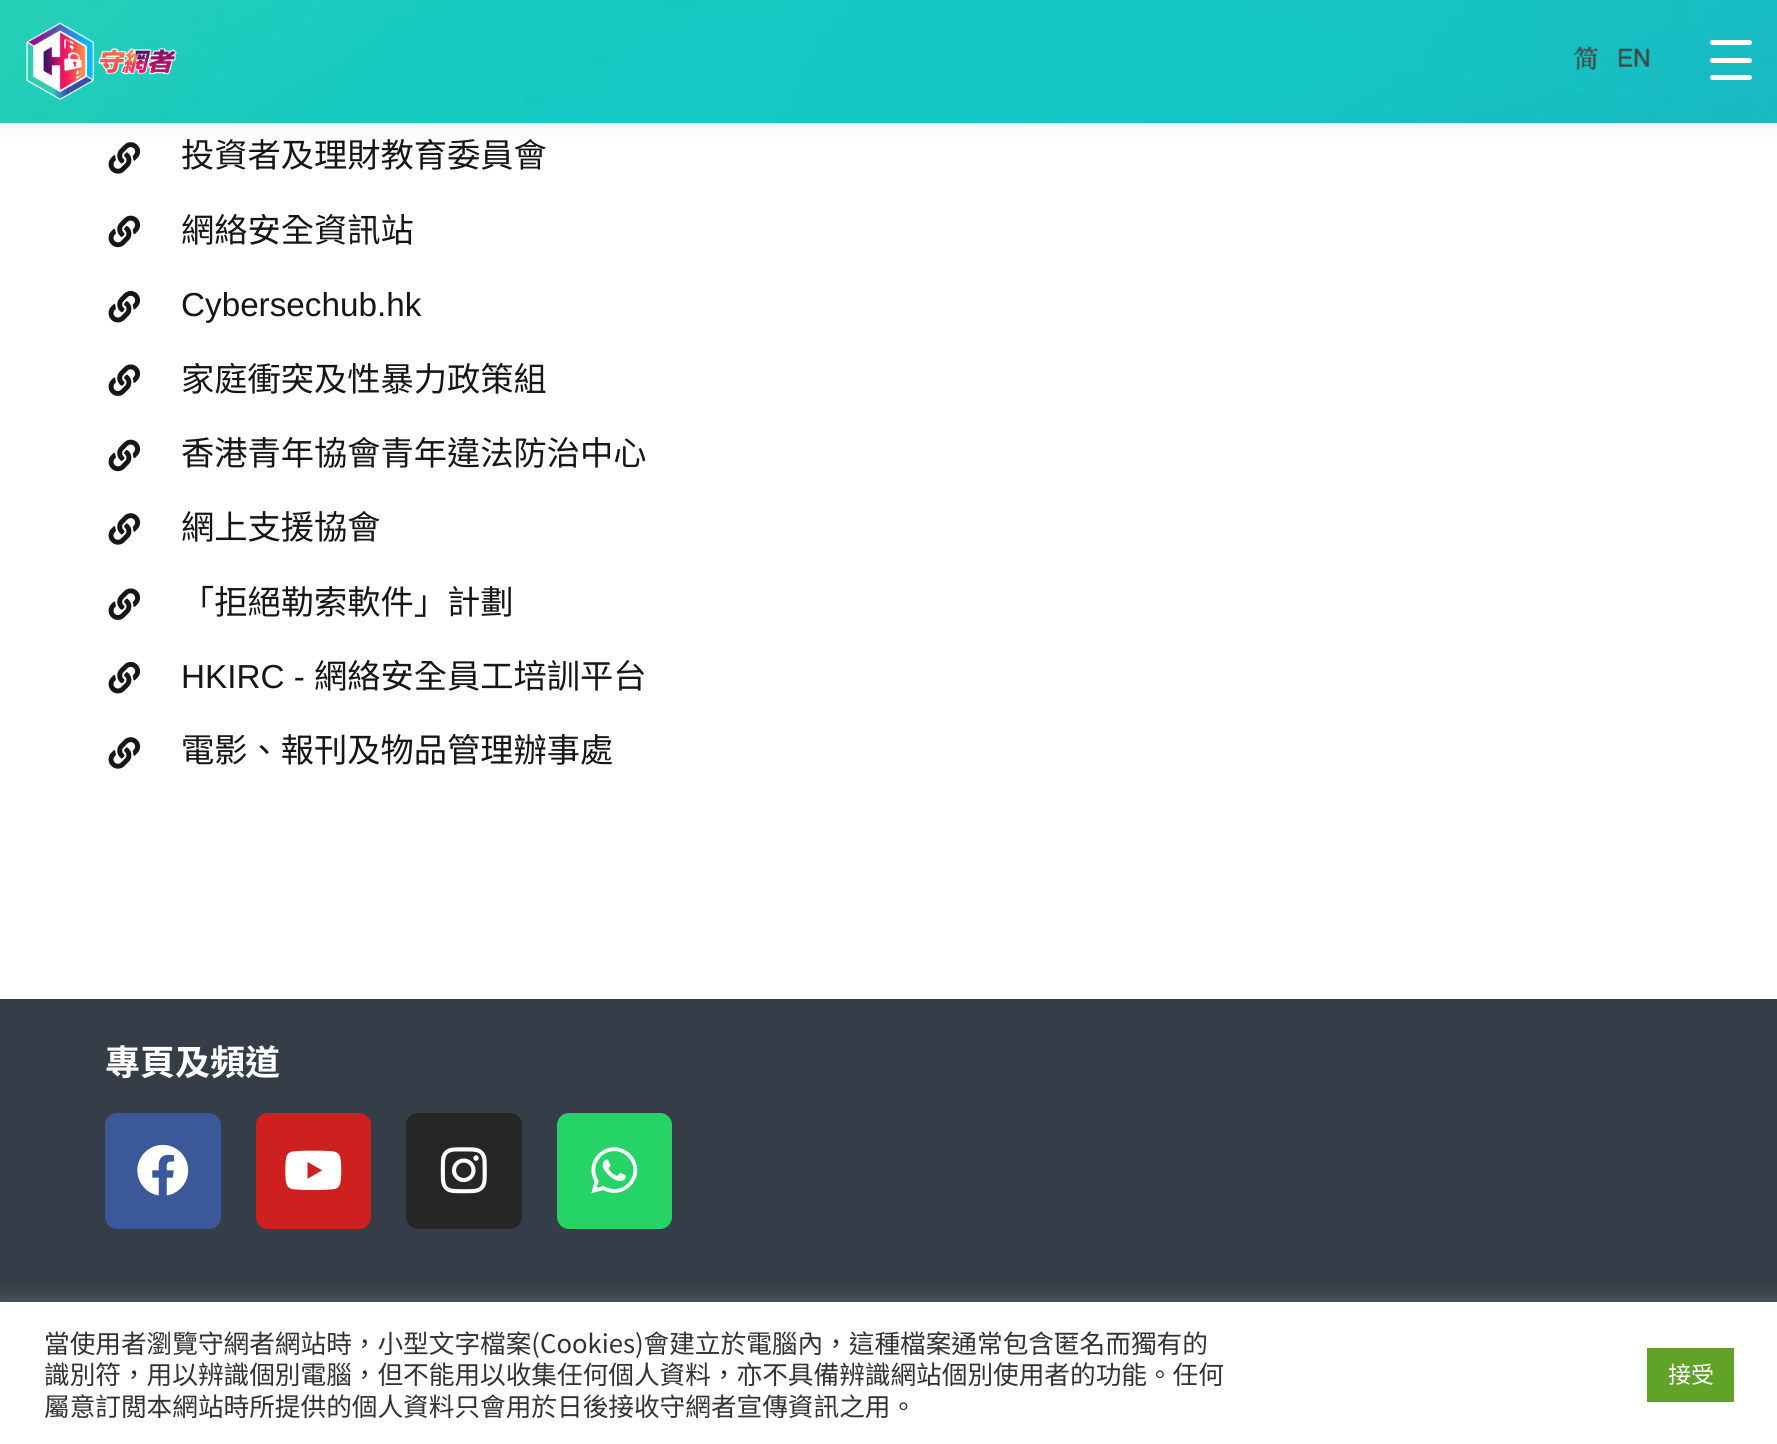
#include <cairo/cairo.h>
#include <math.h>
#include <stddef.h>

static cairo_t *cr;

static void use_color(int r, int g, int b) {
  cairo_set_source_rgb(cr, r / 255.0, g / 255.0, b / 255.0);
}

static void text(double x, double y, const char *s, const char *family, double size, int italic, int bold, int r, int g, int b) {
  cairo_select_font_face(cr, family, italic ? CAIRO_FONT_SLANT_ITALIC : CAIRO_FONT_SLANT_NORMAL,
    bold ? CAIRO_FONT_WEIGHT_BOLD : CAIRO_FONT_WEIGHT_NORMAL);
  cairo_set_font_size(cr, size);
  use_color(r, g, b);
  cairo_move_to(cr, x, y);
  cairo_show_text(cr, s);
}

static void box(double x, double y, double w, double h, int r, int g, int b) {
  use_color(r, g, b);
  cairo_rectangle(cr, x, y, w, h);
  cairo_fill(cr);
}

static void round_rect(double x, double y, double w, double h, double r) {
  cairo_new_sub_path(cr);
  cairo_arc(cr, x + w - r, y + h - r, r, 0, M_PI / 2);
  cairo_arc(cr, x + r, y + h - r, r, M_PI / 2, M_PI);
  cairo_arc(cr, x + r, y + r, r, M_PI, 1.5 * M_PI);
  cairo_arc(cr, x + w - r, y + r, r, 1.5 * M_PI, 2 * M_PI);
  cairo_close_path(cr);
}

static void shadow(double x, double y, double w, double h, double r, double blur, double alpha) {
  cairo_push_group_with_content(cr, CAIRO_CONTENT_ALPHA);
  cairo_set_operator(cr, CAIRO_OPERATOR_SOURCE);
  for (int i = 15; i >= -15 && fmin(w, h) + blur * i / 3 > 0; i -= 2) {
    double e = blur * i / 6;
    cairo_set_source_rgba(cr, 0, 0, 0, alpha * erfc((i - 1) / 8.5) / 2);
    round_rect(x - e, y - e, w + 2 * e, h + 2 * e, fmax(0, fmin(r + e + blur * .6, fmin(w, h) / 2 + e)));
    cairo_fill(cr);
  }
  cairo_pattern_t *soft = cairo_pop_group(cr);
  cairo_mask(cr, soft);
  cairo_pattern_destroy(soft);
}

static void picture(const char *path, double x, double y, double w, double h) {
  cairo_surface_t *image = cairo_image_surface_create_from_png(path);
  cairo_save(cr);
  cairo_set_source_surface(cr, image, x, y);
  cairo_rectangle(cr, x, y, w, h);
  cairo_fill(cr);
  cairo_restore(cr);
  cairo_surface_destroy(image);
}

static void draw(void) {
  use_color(255, 255, 255);
  cairo_paint(cr);
  picture("img_05.png", 108, 142, 33, 32);
  use_color(0, 0, 0);
  shadow(0, 0, 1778, 123, 0, 9, 0.1);
  picture("img_01.png", 0, 0, 1777, 123);
  picture("img_02.png", 26, 22, 151, 78);
  picture("img_03.png", 1573, 46, 26, 25);
  picture("img_04.png", 1618, 48, 32, 19);
  use_color(255, 255, 255);
  round_rect(1710, 58, 42, 5, 2.5);
  cairo_fill(cr);
  round_rect(1710, 40, 42, 5, 2.5);
  cairo_fill(cr);
  round_rect(1710, 75, 42, 5, 2.5);
  cairo_fill(cr);
  picture("img_06.png", 108, 215, 33, 33);
  picture("img_07.png", 108, 290, 33, 33);
  picture("img_08.png", 108, 364, 33, 32);
  picture("img_06.png", 108, 439, 33, 33);
  picture("img_05.png", 108, 513, 33, 32);
  picture("img_08.png", 108, 588, 33, 32);
  picture("img_07.png", 108, 661, 33, 33);
  picture("img_05.png", 108, 737, 33, 32);
  box(0, 999, 1777, 303, 53, 62, 72);
  use_color(59, 89, 152);
  round_rect(105, 1113, 116, 116, 12);
  cairo_fill(cr);
  picture("img_09.png", 137, 1144, 52, 52);
  use_color(205, 32, 31);
  round_rect(256, 1113, 115, 116, 12);
  cairo_fill(cr);
  picture("img_10.png", 285, 1150, 57, 40);
  use_color(38, 38, 38);
  round_rect(406, 1113, 116, 116, 12);
  cairo_fill(cr);
  picture("img_11.png", 440, 1147, 47, 47);
  use_color(37, 211, 102);
  round_rect(557, 1113, 115, 116, 12);
  cairo_fill(cr);
  picture("img_12.png", 591, 1147, 47, 47);
  use_color(172, 171, 171);
  shadow(0, 1300, 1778, 144, 0, 9, 0.3);
  box(0, 1302, 1777, 142, 255, 255, 255);
  box(1647, 1348, 87, 54, 97, 162, 41);
  text(181, 167, "投資者及理財教育委員會", "Noto Sans CJK HK", 33.25, 0, 0, 22, 22, 22);
  text(181, 242, "網絡安全資訊站", "Noto Sans CJK HK", 33.25, 0, 0, 22, 22, 22);
  text(181, 316, "Cybersechub.hk", "Liberation Sans", 33.25, 0, 0, 22, 22, 22);
  text(181, 391, "家庭衝突及性暴力政策組", "Noto Sans CJK HK", 33.25, 0, 0, 22, 22, 22);
  text(181, 465, "香港青年協會青年違法防治中心", "Noto Sans CJK HK", 33.25, 0, 0, 22, 22, 22);
  text(181, 539, "網上支援協會", "Noto Sans CJK HK", 33.25, 0, 0, 22, 22, 22);
  text(181, 614, "「拒絕勒索軟件」計劃", "Noto Sans CJK HK", 33.25, 0, 0, 22, 22, 22);
  text(181, 688, "HKIRC -", "Liberation Sans", 33.25, 0, 0, 22, 22, 22);
  text(314, 688, "網絡安全員工培訓平台", "Noto Sans CJK HK", 33.25, 0, 0, 22, 22, 22);
  text(181, 762, "電影、報刊及物品管理辦事處", "Noto Sans CJK HK", 33.25, 0, 0, 22, 22, 22);
  text(105, 1075, "專頁及頻道", "Noto Sans HK", 35, 0, 1, 255, 255, 255);
  text(44, 1353, "當使用者瀏覽守網者網站時，小型文字檔案(Cookies)會建立於電腦內，這種檔案通常包含匿名而獨有的", "Noto Sans HK", 25.65, 0, 0, 51, 51, 51);
  text(44, 1384, "識別符，用以辨識個別電腦，但不能用以收集任何個人資料，亦不具備辨識網站個別使用者的功能。任何", "Noto Sans HK", 25.65, 0, 0, 51, 51, 51);
  text(44, 1416, "屬意訂閲本網站時所提供的個人資料只會用於日後接收守網者宣傳資訊之用。", "Noto Sans HK", 25.65, 0, 0, 51, 51, 51);
  text(1668, 1383, "接受", "Noto Sans HK", 23, 0, 0, 255, 255, 255);
}

int main(void) {
  cairo_surface_t *surface = cairo_image_surface_create(CAIRO_FORMAT_RGB24, 1777, 1444);
  cr = cairo_create(surface);
  cairo_font_options_t *options = cairo_font_options_create();
  cairo_font_options_set_hint_metrics(options, CAIRO_HINT_METRICS_OFF);
  cairo_font_options_set_hint_style(options, CAIRO_HINT_STYLE_NONE);
  cairo_set_font_options(cr, options);
  cairo_set_miter_limit(cr, 4);
  draw();
  cairo_surface_write_to_png(surface, "out.png");
  cairo_font_options_destroy(options);
  cairo_destroy(cr);
  cairo_surface_destroy(surface);
  return 0;
}
